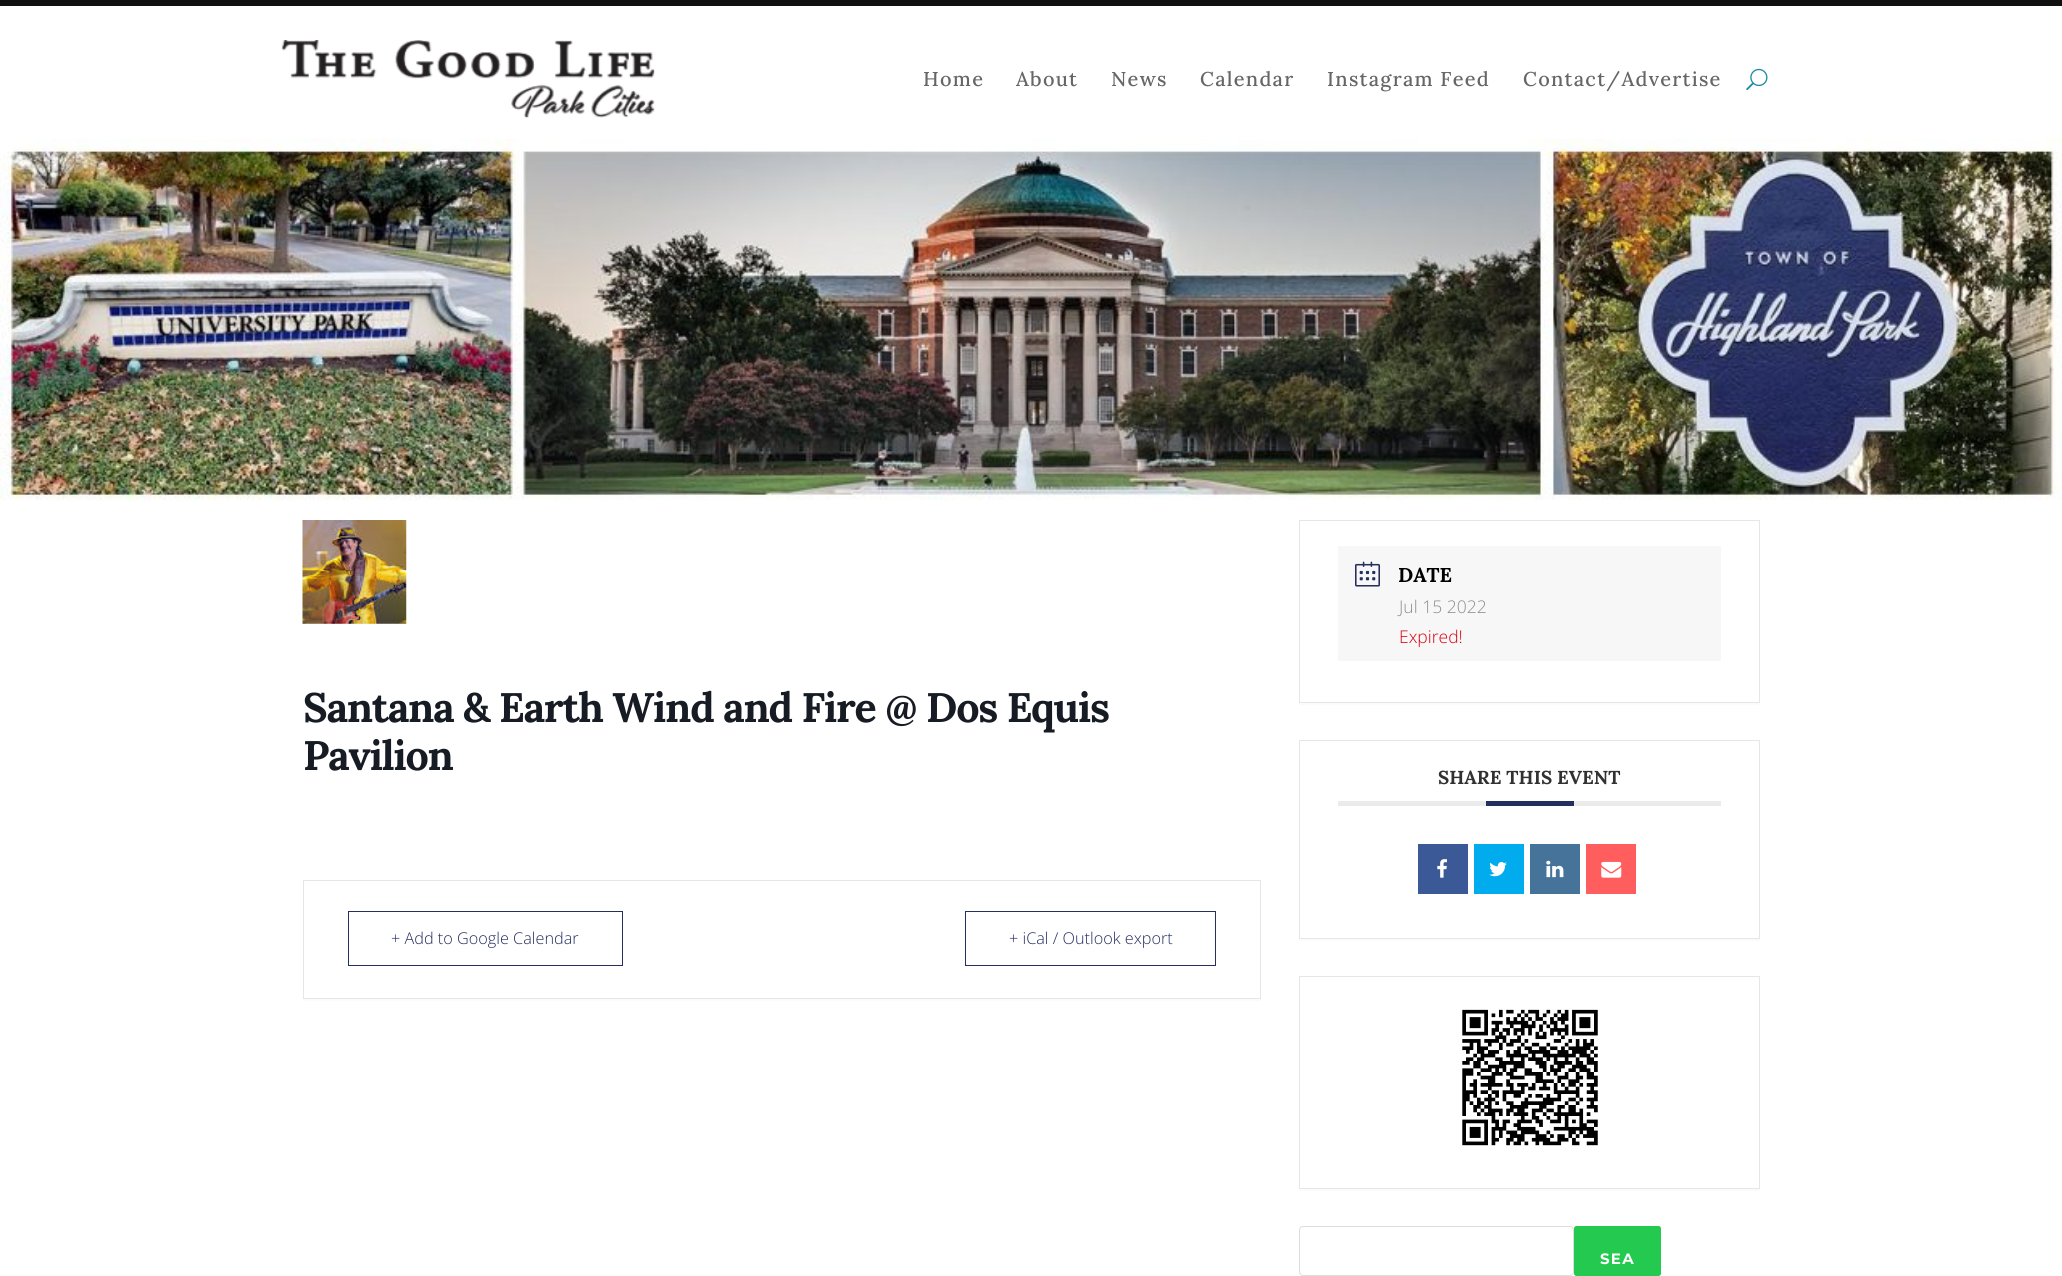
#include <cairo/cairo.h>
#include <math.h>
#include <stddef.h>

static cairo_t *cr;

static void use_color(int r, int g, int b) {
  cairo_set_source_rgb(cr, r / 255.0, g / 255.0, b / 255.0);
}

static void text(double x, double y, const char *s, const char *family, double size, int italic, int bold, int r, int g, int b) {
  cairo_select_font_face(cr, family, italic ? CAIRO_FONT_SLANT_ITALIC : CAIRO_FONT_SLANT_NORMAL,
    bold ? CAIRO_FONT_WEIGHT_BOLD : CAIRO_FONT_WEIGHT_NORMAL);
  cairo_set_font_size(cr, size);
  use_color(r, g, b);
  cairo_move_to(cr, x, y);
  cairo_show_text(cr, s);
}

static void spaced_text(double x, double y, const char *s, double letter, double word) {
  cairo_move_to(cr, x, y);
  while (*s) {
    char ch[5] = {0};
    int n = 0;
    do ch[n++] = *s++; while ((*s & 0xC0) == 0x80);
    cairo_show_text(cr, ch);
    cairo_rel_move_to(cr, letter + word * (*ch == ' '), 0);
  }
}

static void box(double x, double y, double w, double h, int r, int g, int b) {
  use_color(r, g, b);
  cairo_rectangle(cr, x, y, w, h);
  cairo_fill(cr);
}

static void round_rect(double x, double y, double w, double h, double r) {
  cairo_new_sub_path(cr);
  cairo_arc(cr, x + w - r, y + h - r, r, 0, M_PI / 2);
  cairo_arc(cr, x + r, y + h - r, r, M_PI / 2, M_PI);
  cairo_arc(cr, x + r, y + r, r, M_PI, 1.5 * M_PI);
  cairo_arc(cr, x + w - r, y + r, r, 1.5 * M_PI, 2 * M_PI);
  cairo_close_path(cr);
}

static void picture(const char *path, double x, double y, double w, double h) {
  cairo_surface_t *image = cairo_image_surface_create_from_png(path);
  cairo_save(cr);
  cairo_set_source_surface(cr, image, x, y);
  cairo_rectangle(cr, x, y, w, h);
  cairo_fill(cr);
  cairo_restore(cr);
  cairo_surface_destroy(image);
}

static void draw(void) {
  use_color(255, 255, 255);
  cairo_paint(cr);
  box(0, 0, 2062, 6, 16, 16, 16);
  picture("img_01.png", 281, 40, 374, 78);
  picture("img_02.png", 1746, 68, 22, 23);
  picture("img_03.png", 0, 138, 2062, 363);
  picture("img_04.png", 302, 520, 105, 104);
  box(303, 999, 958, 2, 251, 251, 251);
  cairo_rectangle(cr, 303.5, 880.5, 957, 118);
  use_color(230, 230, 230);
  cairo_set_line_width(cr, 1);
  cairo_stroke(cr);
  cairo_rectangle(cr, 348.5, 911.5, 274, 54);
  use_color(36, 46, 95);
  cairo_stroke(cr);
  cairo_rectangle(cr, 965.5, 911.5, 250, 54);
  cairo_stroke(cr);
  box(1299, 703, 461, 2, 251, 251, 251);
  cairo_rectangle(cr, 1299.5, 520.5, 460, 182);
  use_color(230, 230, 230);
  cairo_stroke(cr);
  box(1338, 546, 383, 115, 247, 247, 247);
  picture("img_05.png", 1355, 561, 25, 26);
  box(1299, 939, 461, 2, 251, 251, 251);
  cairo_rectangle(cr, 1299.5, 740.5, 460, 198);
  use_color(230, 230, 230);
  cairo_stroke(cr);
  box(1338, 801, 383, 5, 235, 235, 235);
  box(1486, 801, 88, 5, 36, 46, 95);
  box(1418, 844, 50, 50, 59, 89, 150);
  picture("img_06.png", 1437, 859, 10, 19);
  box(1474, 844, 50, 50, 0, 172, 238);
  picture("img_07.png", 1489, 862, 18, 15);
  box(1530, 844, 50, 50, 69, 115, 153);
  picture("img_08.png", 1546, 860, 18, 18);
  box(1586, 844, 50, 50, 255, 93, 94);
  picture("img_09.png", 1601, 861, 21, 17);
  box(1299, 1189, 461, 2, 251, 251, 251);
  cairo_rectangle(cr, 1299.5, 976.5, 460, 212);
  use_color(230, 230, 230);
  cairo_stroke(cr);
  picture("img_10.png", 1462, 1009, 136, 137);
  round_rect(1299.5, 1226.5, 274, 49, 3.5);
  use_color(221, 221, 221);
  cairo_stroke(cr);
  use_color(36, 202, 79);
  round_rect(1574, 1226, 87, 50, 2.5);
  cairo_fill(cr);
  cairo_select_font_face(cr, "Lora Medium", CAIRO_FONT_SLANT_NORMAL, CAIRO_FONT_WEIGHT_NORMAL);
  cairo_set_font_size(cr, 20);
  use_color(102, 102, 102);
  spaced_text(923, 86, "Home", 1.25, 0);
  spaced_text(1016, 86, "About", 1.25, 0);
  spaced_text(1111, 86, "News", 1.25, 0);
  spaced_text(1200, 86, "Calendar", 1.25, 0);
  spaced_text(1327, 86, "Instagram Feed", 1.25, 0);
  spaced_text(1523, 86, "Contact/Advertise", 1.25, 0);
  cairo_select_font_face(cr, "Lora", CAIRO_FONT_SLANT_NORMAL, CAIRO_FONT_WEIGHT_BOLD);
  cairo_set_font_size(cr, 41.25);
  use_color(23, 28, 36);
  spaced_text(303, 722, "Santana & Earth Wind and Fire @ Dos Equis", -1.25, 0);
  spaced_text(303, 770, "Pavilion", -1.25, 0);
  text(391, 944, "+ Add to Google Calendar", "Open Sans Light", 16.25, 0, 0, 36, 46, 95);
  text(1009, 944, "+ iCal / Outlook export", "Open Sans Light", 16.25, 0, 0, 36, 46, 95);
  text(1398, 582, "DATE", "Lora", 20, 0, 1, 0, 0, 0);
  text(1399, 613, "Jul 15 2022", "Open Sans Light", 17.5, 0, 0, 141, 141, 141);
  text(1399, 643, "Expired!", "Open Sans Light", 17.5, 0, 0, 216, 0, 12);
  text(1438, 784, "SHARE THIS EVENT", "Lora", 18.75, 0, 1, 49, 49, 49);
  cairo_select_font_face(cr, "Montserrat", CAIRO_FONT_SLANT_NORMAL, CAIRO_FONT_WEIGHT_BOLD);
  cairo_set_font_size(cr, 15);
  use_color(255, 255, 255);
  spaced_text(1600, 1264, "SEA", 1.25, 0);
}

int main(void) {
  cairo_surface_t *surface = cairo_image_surface_create(CAIRO_FORMAT_RGB24, 2062, 1276);
  cr = cairo_create(surface);
  cairo_font_options_t *options = cairo_font_options_create();
  cairo_font_options_set_hint_metrics(options, CAIRO_HINT_METRICS_OFF);
  cairo_font_options_set_hint_style(options, CAIRO_HINT_STYLE_NONE);
  cairo_set_font_options(cr, options);
  cairo_set_miter_limit(cr, 4);
  draw();
  cairo_surface_write_to_png(surface, "out.png");
  cairo_font_options_destroy(options);
  cairo_destroy(cr);
  cairo_surface_destroy(surface);
  return 0;
}
